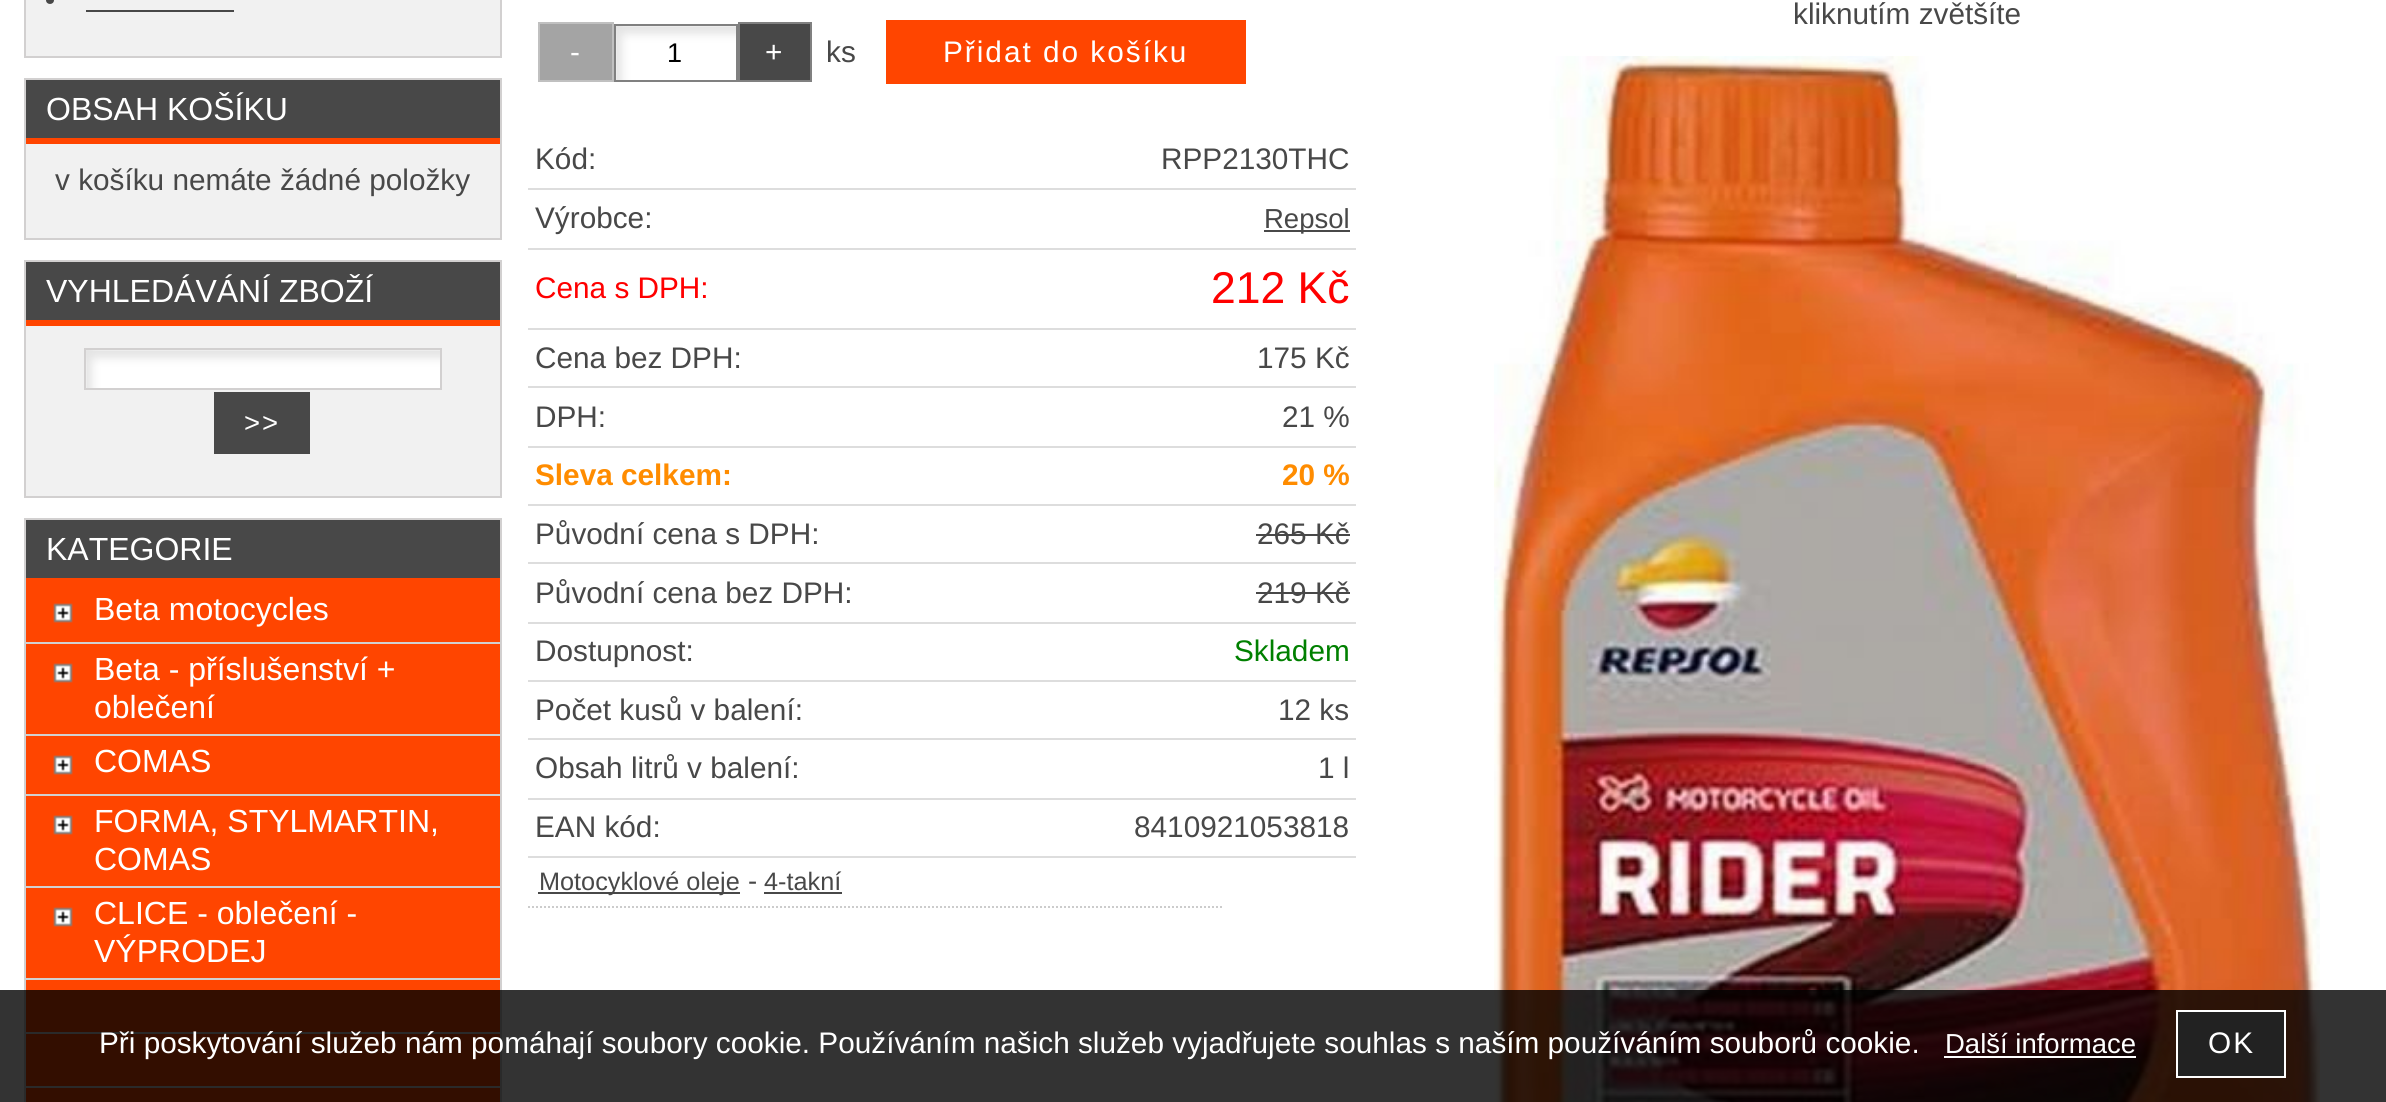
#include <cairo/cairo.h>
#include <math.h>
#include <stddef.h>

static cairo_t *cr;

static void use_color(int r, int g, int b) {
  cairo_set_source_rgb(cr, r / 255.0, g / 255.0, b / 255.0);
}

static void text(double x, double y, const char *s, const char *family, double size, int italic, int bold, int r, int g, int b) {
  cairo_select_font_face(cr, family, italic ? CAIRO_FONT_SLANT_ITALIC : CAIRO_FONT_SLANT_NORMAL,
    bold ? CAIRO_FONT_WEIGHT_BOLD : CAIRO_FONT_WEIGHT_NORMAL);
  cairo_set_font_size(cr, size);
  use_color(r, g, b);
  cairo_move_to(cr, x, y);
  cairo_show_text(cr, s);
}

static void spaced_text(double x, double y, const char *s, double letter, double word) {
  cairo_move_to(cr, x, y);
  while (*s) {
    char ch[5] = {0};
    int n = 0;
    do ch[n++] = *s++; while ((*s & 0xC0) == 0x80);
    cairo_show_text(cr, ch);
    cairo_rel_move_to(cr, letter + word * (*ch == ' '), 0);
  }
}

static void box(double x, double y, double w, double h, int r, int g, int b) {
  use_color(r, g, b);
  cairo_rectangle(cr, x, y, w, h);
  cairo_fill(cr);
}

static void picture(const char *path, double x, double y, double w, double h) {
  cairo_surface_t *image = cairo_image_surface_create_from_png(path);
  cairo_save(cr);
  cairo_set_source_surface(cr, image, x, y);
  cairo_rectangle(cr, x, y, w, h);
  cairo_fill(cr);
  cairo_restore(cr);
  cairo_surface_destroy(image);
}

static void draw(void) {
  use_color(255, 255, 255);
  cairo_paint(cr);
  cairo_rectangle(cr, 25, -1, 476, 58);
  use_color(210, 208, 208);
  cairo_stroke(cr);
  box(26, 0, 474, 56, 241, 241, 241);
  use_color(72, 72, 72);
  cairo_arc(cr, 50, 0, 4, 0, 2 * M_PI);
  cairo_fill(cr);
  box(86, 10, 148, 2, 72, 72, 72);
  cairo_rectangle(cr, 25, 79, 476, 160);
  use_color(210, 208, 208);
  cairo_stroke(cr);
  box(26, 80, 474, 58, 72, 72, 72);
  box(26, 138, 474, 6, 255, 69, 0);
  box(26, 144, 474, 94, 241, 241, 241);
  cairo_rectangle(cr, 25, 261, 476, 236);
  use_color(210, 208, 208);
  cairo_stroke(cr);
  box(26, 262, 474, 58, 72, 72, 72);
  box(26, 320, 474, 6, 255, 69, 0);
  box(26, 326, 474, 170, 241, 241, 241);
  picture("img_01.png", 86, 350, 354, 38);
  cairo_rectangle(cr, 85, 349, 356, 40);
  use_color(210, 208, 208);
  cairo_stroke(cr);
  box(214, 392, 96, 62, 72, 72, 72);
  cairo_rectangle(cr, 25, 519, 476, 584);
  use_color(210, 208, 208);
  cairo_stroke(cr);
  box(26, 520, 474, 58, 72, 72, 72);
  box(26, 578, 474, 64, 255, 69, 0);
  box(26, 642, 474, 2, 210, 208, 208);
  picture("img_02.png", 53, 603, 20, 20);
  box(26, 644, 474, 90, 255, 69, 0);
  box(26, 734, 474, 2, 210, 208, 208);
  picture("img_02.png", 53, 663, 20, 20);
  box(26, 736, 474, 58, 255, 69, 0);
  box(26, 794, 474, 2, 210, 208, 208);
  picture("img_02.png", 53, 755, 20, 20);
  box(26, 796, 474, 90, 255, 69, 0);
  box(26, 886, 474, 2, 210, 208, 208);
  picture("img_02.png", 53, 815, 20, 20);
  box(26, 888, 474, 90, 255, 69, 0);
  box(26, 978, 474, 2, 210, 208, 208);
  picture("img_02.png", 53, 907, 20, 20);
  box(26, 980, 474, 52, 255, 69, 0);
  box(26, 1032, 474, 2, 210, 208, 208);
  box(26, 1034, 474, 52, 255, 69, 0);
  box(26, 1086, 474, 2, 210, 208, 208);
  box(26, 1088, 474, 14, 255, 69, 0);
  picture("img_03.png", 1494, 56, 826, 1046);
  use_color(164, 164, 164);
  cairo_rectangle(cr, 539, 23, 74, 58);
  cairo_fill_preserve(cr);
  use_color(192, 192, 192);
  cairo_stroke(cr);
  picture("img_04.png", 616, 26, 120, 54);
  cairo_rectangle(cr, 615, 25, 122, 56);
  use_color(128, 128, 128);
  cairo_stroke(cr);
  use_color(72, 72, 72);
  cairo_rectangle(cr, 739, 23, 72, 58);
  cairo_fill_preserve(cr);
  use_color(128, 128, 128);
  cairo_stroke(cr);
  box(886, 20, 360, 64, 255, 69, 0);
  box(528, 188, 828, 2, 221, 221, 221);
  box(528, 248, 828, 2, 221, 221, 221);
  box(1264, 230, 86, 2, 72, 72, 72);
  box(528, 328, 828, 2, 221, 221, 221);
  box(528, 386, 828, 2, 221, 221, 221);
  box(528, 446, 828, 2, 221, 221, 221);
  box(528, 504, 828, 2, 221, 221, 221);
  box(528, 562, 828, 2, 221, 221, 221);
  box(1256, 534, 94, 2, 72, 72, 72);
  box(528, 622, 828, 2, 221, 221, 221);
  box(1256, 592, 94, 2, 72, 72, 72);
  box(528, 680, 828, 2, 221, 221, 221);
  box(528, 738, 828, 2, 221, 221, 221);
  box(528, 798, 828, 2, 221, 221, 221);
  box(528, 856, 828, 2, 221, 221, 221);
  cairo_new_path(cr);
  cairo_move_to(cr, 528, 907);
  cairo_line_to(cr, 1222, 907);
  use_color(204, 204, 204);
  cairo_set_dash(cr, (double[]){2, 2}, 2, 0);
  cairo_stroke(cr);
  box(538, 892, 202, 2, 72, 72, 72);
  box(764, 892, 78, 2, 72, 72, 72);
  cairo_set_source_rgba(cr, 0, 0, 0, 0.8);
  cairo_rectangle(cr, 0, 990, 2386, 112);
  cairo_fill(cr);
  box(1944, 1056, 192, 2, 255, 255, 255);
  use_color(34, 34, 34);
  cairo_rectangle(cr, 2177, 1011, 108, 66);
  cairo_fill_preserve(cr);
  use_color(255, 255, 255);
  cairo_set_dash(cr, NULL, 0, 0);
  cairo_stroke(cr);
  text(46, 120, "OBSAH KOŠÍKU", "Liberation Sans", 32, 0, 0, 255, 255, 255);
  text(55, 190, "v košíku nemáte žádné položky", "Liberation Sans", 29.75, 0, 0, 72, 72, 72);
  text(46, 302, "VYHLEDÁVÁNÍ ZBOŽÍ", "Liberation Sans", 32, 0, 0, 255, 255, 255);
  cairo_set_font_size(cr, 27.5);
  spaced_text(244, 432, ">>", 2, 0);
  text(46, 560, "KATEGORIE", "Liberation Sans", 32, 0, 0, 255, 255, 255);
  text(94, 620, "Beta motocycles", "Liberation Sans", 32, 0, 0, 255, 255, 255);
  text(94, 680, "Beta - příslušenství +", "Liberation Sans", 32, 0, 0, 255, 255, 255);
  text(94, 718, "oblečení", "Liberation Sans", 32, 0, 0, 255, 255, 255);
  text(94, 772, "COMAS", "Liberation Sans", 32, 0, 0, 255, 255, 255);
  text(94, 832, "FORMA, STYLMARTIN,", "Liberation Sans", 32, 0, 0, 255, 255, 255);
  text(94, 870, "COMAS", "Liberation Sans", 32, 0, 0, 255, 255, 255);
  text(94, 924, "CLICE - oblečení -", "Liberation Sans", 32, 0, 0, 255, 255, 255);
  text(94, 962, "VÝPRODEJ", "Liberation Sans", 32, 0, 0, 255, 255, 255);
  text(1793, 24, "kliknutím zvětšíte", "Liberation Sans", 29.75, 0, 0, 72, 72, 72);
  use_color(255, 255, 255);
  spaced_text(570, 62, "-", 2, 0);
  cairo_set_font_size(cr, 27);
  use_color(0, 0, 0);
  spaced_text(667, 62, "1", 2, 0);
  cairo_set_font_size(cr, 29.75);
  use_color(255, 255, 255);
  spaced_text(765, 62, "+", 2, 0);
  text(826, 62, "ks", "Liberation Sans", 29.75, 0, 0, 72, 72, 72);
  use_color(255, 255, 255);
  spaced_text(943, 62, "Přidat do košíku", 2, 0);
  text(535, 169, "Kód:", "Liberation Sans", 29.75, 0, 0, 72, 72, 72);
  text(1161, 169, "RPP2130THC", "Liberation Sans", 29.75, 0, 0, 72, 72, 72);
  text(535, 228, "Výrobce:", "Liberation Sans", 29.75, 0, 0, 72, 72, 72);
  text(1264, 228, "Repsol", "Liberation Sans", 27.5, 0, 0, 72, 72, 72);
  text(535, 298, "Cena s DPH:", "Liberation Sans", 29.75, 0, 0, 255, 0, 0);
  text(1211, 303, "212 Kč", "Liberation Sans", 44.5, 0, 0, 255, 0, 0);
  text(535, 368, "Cena bez DPH:", "Liberation Sans", 29.75, 0, 0, 72, 72, 72);
  text(1257, 368, "175 Kč", "Liberation Sans", 29.75, 0, 0, 72, 72, 72);
  text(535, 427, "DPH:", "Liberation Sans", 29.75, 0, 0, 72, 72, 72);
  text(1282, 427, "21 %", "Liberation Sans", 29.75, 0, 0, 72, 72, 72);
  text(535, 485, "Sleva celkem:", "Liberation Sans", 29.75, 0, 1, 255, 140, 0);
  text(1282, 485, "20 %", "Liberation Sans", 29.75, 0, 1, 255, 140, 0);
  text(535, 544, "Původní cena s DPH:", "Liberation Sans", 29.75, 0, 0, 72, 72, 72);
  text(1257, 544, "265 Kč", "Liberation Sans", 29.75, 0, 0, 72, 72, 72);
  text(535, 603, "Původní cena bez DPH:", "Liberation Sans", 29.75, 0, 0, 72, 72, 72);
  text(1257, 603, "219 Kč", "Liberation Sans", 29.75, 0, 0, 72, 72, 72);
  text(535, 661, "Dostupnost:", "Liberation Sans", 29.75, 0, 0, 72, 72, 72);
  text(1234, 661, "Skladem", "Liberation Sans", 29.75, 0, 0, 0, 128, 0);
  text(535, 720, "Počet kusů v balení:", "Liberation Sans", 29.75, 0, 0, 72, 72, 72);
  text(1278, 720, "12 ks", "Liberation Sans", 29.75, 0, 0, 72, 72, 72);
  text(535, 778, "Obsah litrů v balení:", "Liberation Sans", 29.75, 0, 0, 72, 72, 72);
  text(1318, 778, "1 l", "Liberation Sans", 29.75, 0, 0, 72, 72, 72);
  text(535, 837, "EAN kód:", "Liberation Sans", 29.75, 0, 0, 72, 72, 72);
  text(1134, 837, "8410921053818", "Liberation Sans", 29.75, 0, 0, 72, 72, 72);
  text(539, 890, "Motocyklové oleje", "Liberation Sans", 25.25, 0, 0, 72, 72, 72);
  text(748, 890, "-", "Liberation Sans", 27.5, 0, 0, 72, 72, 72);
  text(764, 890, "4-takní", "Liberation Sans", 25.25, 0, 0, 72, 72, 72);
  text(99, 1053, "Při poskytování služeb nám pomáhají soubory cookie. Používáním našich služeb vyjadřujete souhlas s naším používáním souborů cookie.", "Liberation Sans", 29.75, 0, 0, 255, 255, 255);
  text(1945, 1053, "Další informace", "Liberation Sans", 27.5, 0, 0, 255, 255, 255);
  cairo_set_font_size(cr, 29.75);
  spaced_text(2208, 1053, "OK", 2, 0);
}

int main(void) {
  cairo_surface_t *surface = cairo_image_surface_create(CAIRO_FORMAT_RGB24, 2386, 1102);
  cr = cairo_create(surface);
  cairo_font_options_t *options = cairo_font_options_create();
  cairo_font_options_set_hint_metrics(options, CAIRO_HINT_METRICS_OFF);
  cairo_font_options_set_hint_style(options, CAIRO_HINT_STYLE_NONE);
  cairo_set_font_options(cr, options);
  cairo_set_miter_limit(cr, 4);
  draw();
  cairo_surface_write_to_png(surface, "out.png");
  cairo_font_options_destroy(options);
  cairo_destroy(cr);
  cairo_surface_destroy(surface);
  return 0;
}
